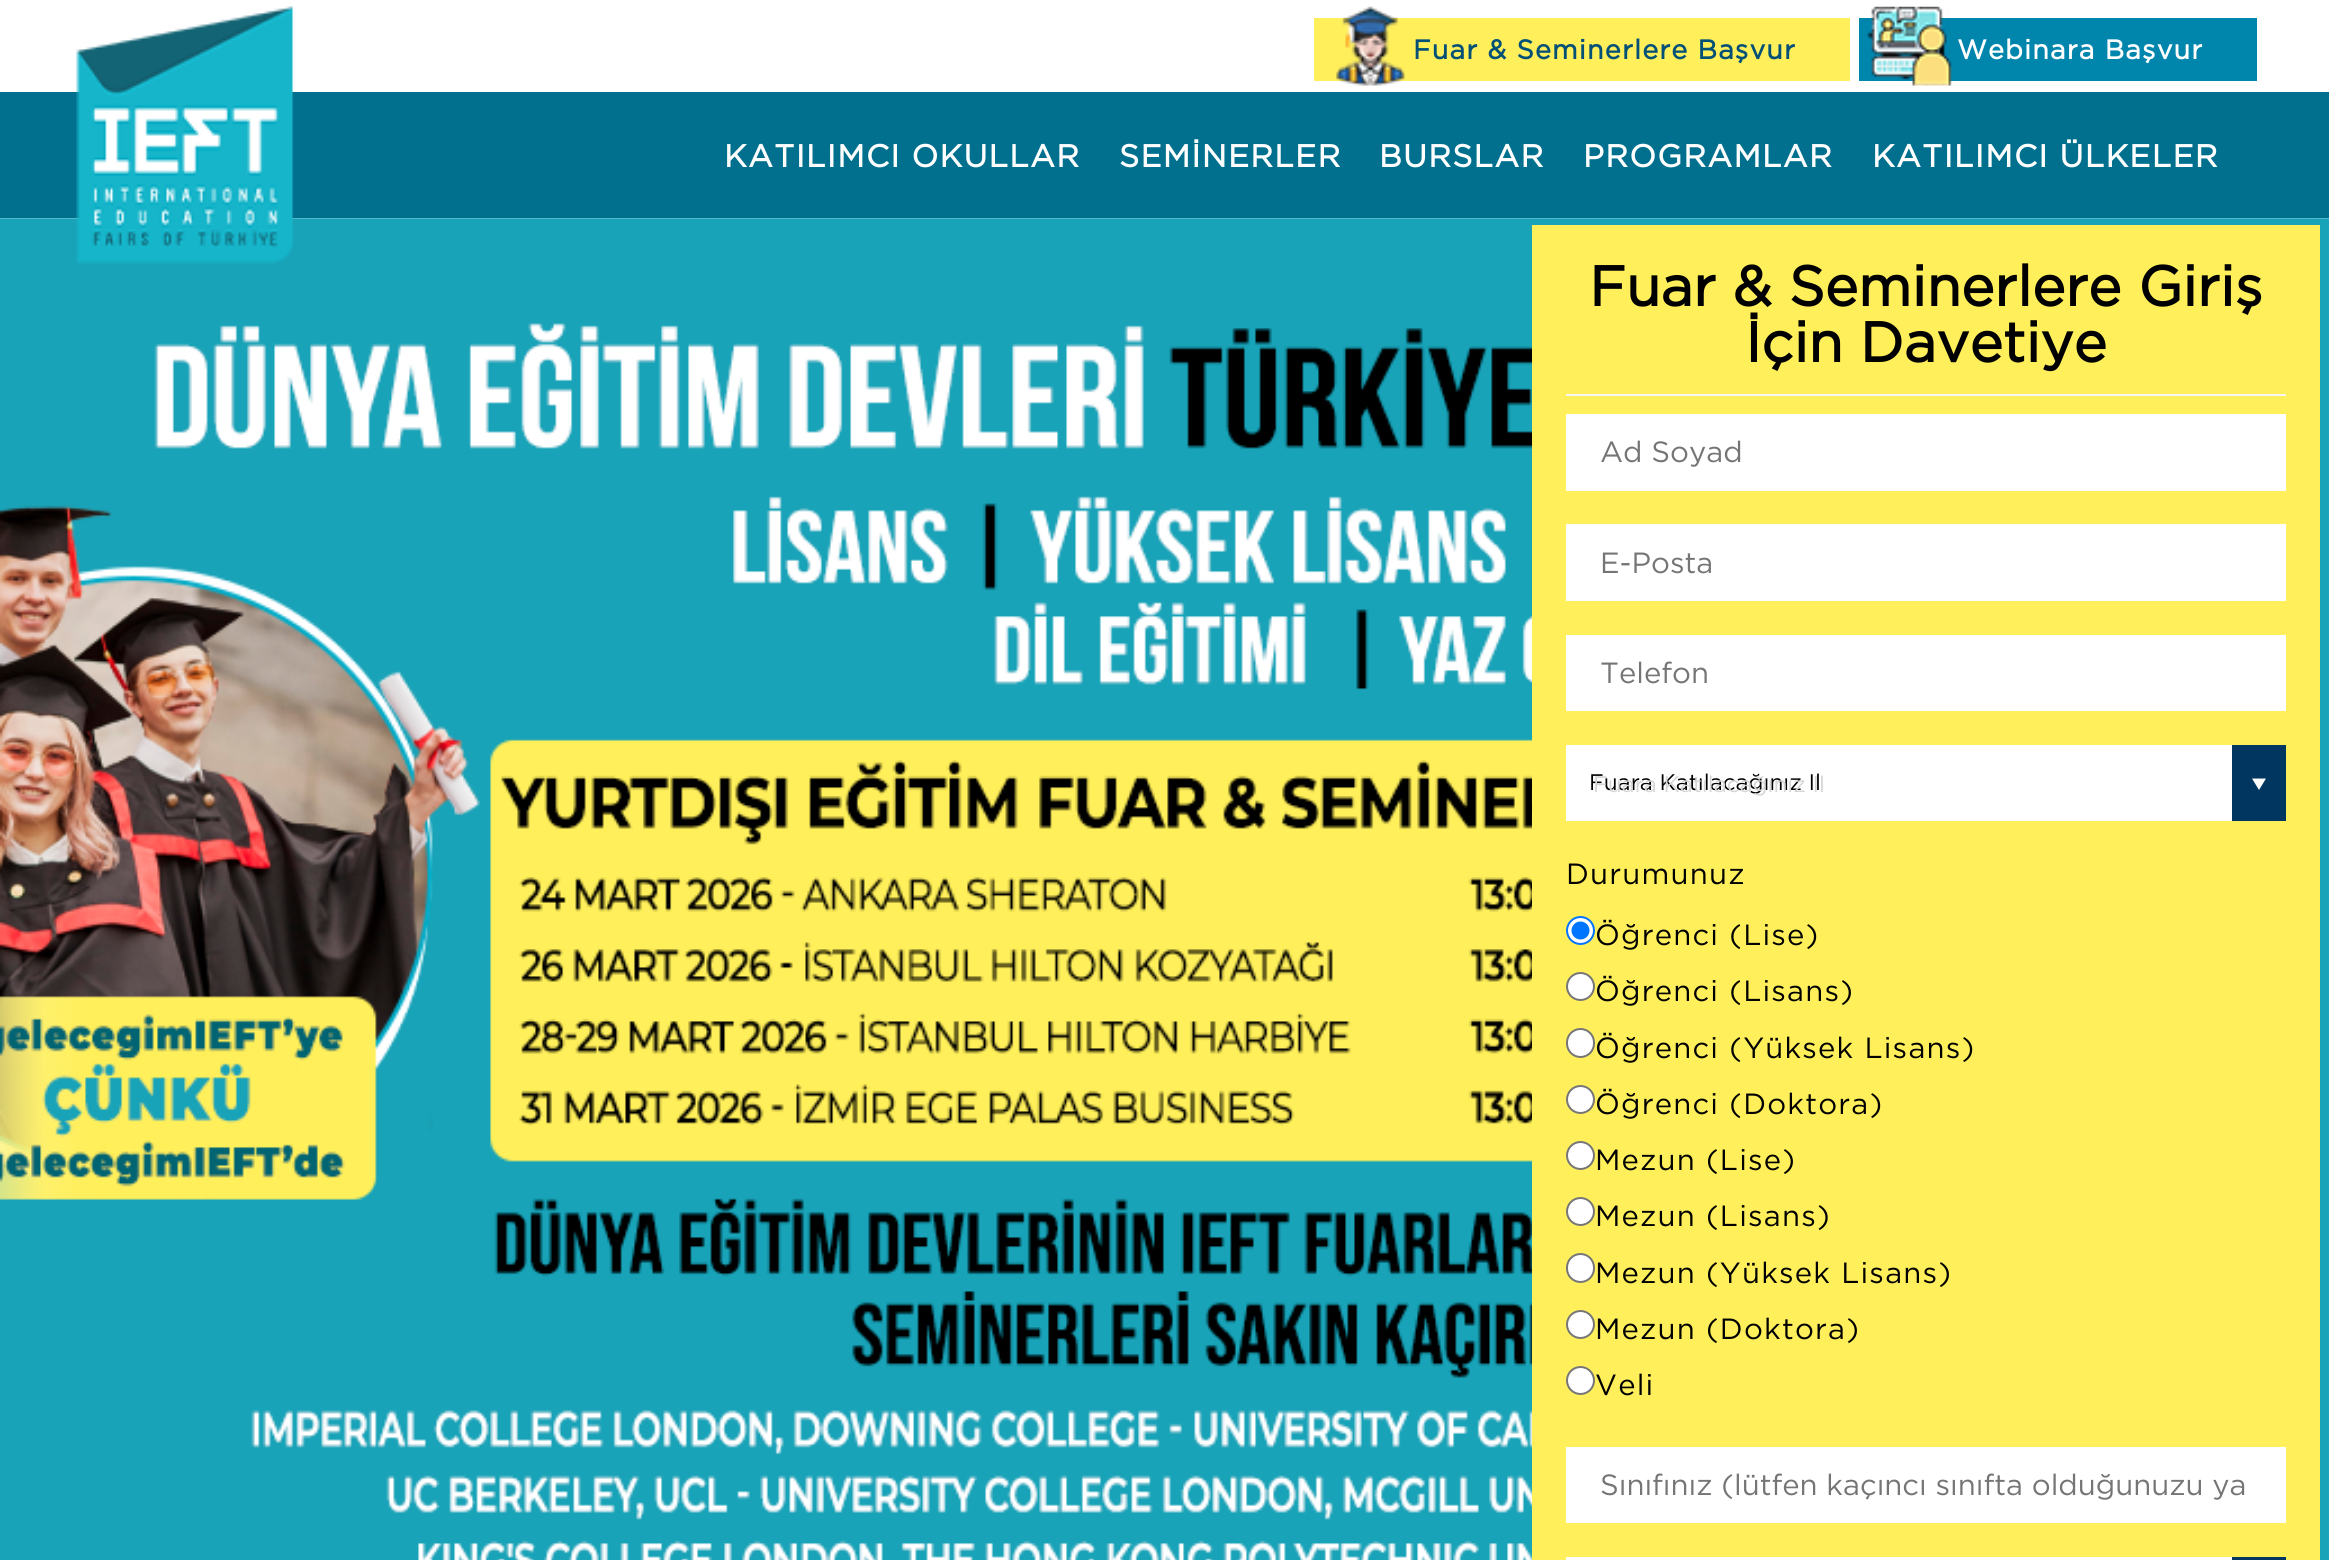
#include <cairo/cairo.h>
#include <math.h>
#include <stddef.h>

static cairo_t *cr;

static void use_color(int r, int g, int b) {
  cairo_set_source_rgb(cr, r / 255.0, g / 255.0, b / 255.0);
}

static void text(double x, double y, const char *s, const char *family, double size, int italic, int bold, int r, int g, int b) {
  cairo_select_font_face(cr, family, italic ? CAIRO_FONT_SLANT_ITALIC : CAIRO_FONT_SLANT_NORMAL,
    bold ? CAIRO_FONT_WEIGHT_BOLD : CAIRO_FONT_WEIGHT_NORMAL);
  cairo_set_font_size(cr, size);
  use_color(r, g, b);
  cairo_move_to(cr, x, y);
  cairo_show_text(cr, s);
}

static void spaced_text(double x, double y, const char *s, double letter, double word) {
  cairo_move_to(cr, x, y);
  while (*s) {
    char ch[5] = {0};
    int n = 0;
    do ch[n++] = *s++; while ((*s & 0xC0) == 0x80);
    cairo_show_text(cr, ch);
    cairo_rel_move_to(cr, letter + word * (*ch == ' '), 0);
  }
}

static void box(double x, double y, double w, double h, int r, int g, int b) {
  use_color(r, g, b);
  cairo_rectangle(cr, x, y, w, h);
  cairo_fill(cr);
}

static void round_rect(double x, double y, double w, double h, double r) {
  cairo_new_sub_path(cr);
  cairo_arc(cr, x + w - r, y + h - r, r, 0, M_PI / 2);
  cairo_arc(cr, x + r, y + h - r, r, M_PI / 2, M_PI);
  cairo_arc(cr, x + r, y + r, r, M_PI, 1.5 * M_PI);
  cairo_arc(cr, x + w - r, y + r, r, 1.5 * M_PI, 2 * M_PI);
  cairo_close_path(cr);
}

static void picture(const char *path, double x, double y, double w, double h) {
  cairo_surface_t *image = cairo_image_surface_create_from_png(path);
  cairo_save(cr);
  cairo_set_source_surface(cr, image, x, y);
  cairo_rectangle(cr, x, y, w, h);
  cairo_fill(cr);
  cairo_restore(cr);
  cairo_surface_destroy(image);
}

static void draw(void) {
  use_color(255, 255, 255);
  cairo_paint(cr);
  box(1314, 18, 536, 63, 255, 239, 91);
  picture("img_01.png", 1336, 6, 69, 80);
  box(1859, 18, 398, 63, 0, 133, 173);
  picture("img_02.png", 1867, 6, 85, 80);
  box(0, 92, 2329, 126, 1, 112, 142);
  picture("img_04.png", 0, 218, 2329, 1342);
  picture("img_03.png", 76, 6, 218, 258);
  box(1532, 225, 788, 1335, 255, 239, 91);
  box(1566, 394, 720, 2, 245, 245, 245);
  box(1566, 414, 720, 77, 255, 255, 255);
  box(1566, 524, 720, 77, 255, 255, 255);
  box(1566, 635, 720, 76, 255, 255, 255);
  box(1566, 745, 666, 76, 255, 255, 255);
  box(2232, 745, 54, 76, 0, 54, 96);
  use_color(255, 255, 255);
  cairo_new_path(cr);
  cairo_move_to(cr, 2252, 778.5);
  cairo_line_to(cr, 2266, 778.5);
  cairo_line_to(cr, 2259, 790);
  cairo_close_path(cr);
  cairo_fill(cr);
  cairo_arc(cr, 1580.5, 930.5, 13.5, 0, 2 * M_PI);
  cairo_fill_preserve(cr);
  use_color(0, 117, 255);
  cairo_stroke(cr);
  cairo_arc(cr, 1580.5, 930.5, 9, 0, 2 * M_PI);
  cairo_fill(cr);
  use_color(255, 255, 255);
  cairo_arc(cr, 1580.5, 986.5, 13.5, 0, 2 * M_PI);
  cairo_fill_preserve(cr);
  use_color(118, 118, 118);
  cairo_stroke(cr);
  use_color(255, 255, 255);
  round_rect(1567, 1029, 27, 28, 13.5);
  cairo_fill_preserve(cr);
  use_color(118, 118, 118);
  cairo_stroke(cr);
  use_color(255, 255, 255);
  cairo_arc(cr, 1580.5, 1099.5, 13.5, 0, 2 * M_PI);
  cairo_fill_preserve(cr);
  use_color(118, 118, 118);
  cairo_stroke(cr);
  use_color(255, 255, 255);
  cairo_arc(cr, 1580.5, 1155.5, 13.5, 0, 2 * M_PI);
  cairo_fill_preserve(cr);
  use_color(118, 118, 118);
  cairo_stroke(cr);
  use_color(255, 255, 255);
  cairo_arc(cr, 1580.5, 1211.5, 13.5, 0, 2 * M_PI);
  cairo_fill_preserve(cr);
  use_color(118, 118, 118);
  cairo_stroke(cr);
  use_color(255, 255, 255);
  round_rect(1567, 1254, 27, 28, 13.5);
  cairo_fill_preserve(cr);
  use_color(118, 118, 118);
  cairo_stroke(cr);
  use_color(255, 255, 255);
  cairo_arc(cr, 1580.5, 1324.5, 13.5, 0, 2 * M_PI);
  cairo_fill_preserve(cr);
  use_color(118, 118, 118);
  cairo_stroke(cr);
  use_color(255, 255, 255);
  cairo_arc(cr, 1580.5, 1380.5, 13.5, 0, 2 * M_PI);
  cairo_fill_preserve(cr);
  use_color(118, 118, 118);
  cairo_stroke(cr);
  box(1566, 1447, 720, 76, 255, 255, 255);
  box(1566, 1557, 666, 3, 255, 255, 255);
  box(2232, 1557, 54, 3, 0, 54, 96);
  cairo_select_font_face(cr, "Gotham", CAIRO_FONT_SLANT_NORMAL, CAIRO_FONT_WEIGHT_BOLD);
  cairo_set_font_size(cr, 27);
  use_color(3, 80, 119);
  spaced_text(1413, 59, "Fuar & Seminerlere Başvur", 1.1, 0);
  use_color(255, 255, 255);
  spaced_text(1957, 59, "Webinara Başvur", 1.1, 0);
  cairo_set_font_size(cr, 31.5);
  spaced_text(724, 167, "KATILIMCI OKULLAR", 1.25, 0);
  spaced_text(1119, 167, "SEMİNERLER", 1.25, 0);
  spaced_text(1379, 167, "BURSLAR", 1.25, 0);
  spaced_text(1583, 167, "PROGRAMLAR", 1.25, 0);
  spaced_text(1872, 167, "KATILIMCI ÜLKELER", 1.25, 0);
  text(1589, 306, "Fuar & Seminerlere Giriş", "Gotham", 56.25, 0, 1, 0, 0, 0);
  text(1745, 362, "İçin Davetiye", "Gotham", 56.25, 0, 1, 0, 0, 0);
  text(1600, 462, "Ad Soyad", "Gotham", 29.25, 0, 0, 117, 117, 117);
  text(1600, 573, "E-Posta", "Gotham", 29.25, 0, 0, 117, 117, 117);
  text(1600, 683, "Telefon", "Gotham", 29.25, 0, 0, 117, 117, 117);
  text(1589, 790, "Fuara Katılacağınız Il", "Gotham", 22.5, 0, 0, 0, 0, 0);
  text(1593, 792, "Fuara Katılacağınız Il", "Gotham", 22.5, 0, 0, 214, 214, 214);
  cairo_set_font_size(cr, 29.25);
  use_color(0, 0, 0);
  spaced_text(1566, 884, "Durumunuz", 1.2, 0);
  spaced_text(1595, 945, "Öğrenci (Lise)", 1.2, 0);
  spaced_text(1595, 1001, "Öğrenci (Lisans)", 1.2, 0);
  spaced_text(1595, 1058, "Öğrenci (Yüksek Lisans)", 1.2, 0);
  spaced_text(1595, 1114, "Öğrenci (Doktora)", 1.2, 0);
  spaced_text(1595, 1170, "Mezun (Lise)", 1.2, 0);
  spaced_text(1595, 1226, "Mezun (Lisans)", 1.2, 0);
  spaced_text(1595, 1283, "Mezun (Yüksek Lisans)", 1.2, 0);
  spaced_text(1595, 1339, "Mezun (Doktora)", 1.2, 0);
  spaced_text(1595, 1395, "Veli", 1.2, 0);
  text(1600, 1495, "Sınıfınız (lütfen kaçıncı sınıfta olduğunuzu ya", "Gotham", 29.25, 0, 0, 117, 117, 117);
}

int main(void) {
  cairo_surface_t *surface = cairo_image_surface_create(CAIRO_FORMAT_RGB24, 2329, 1560);
  cr = cairo_create(surface);
  cairo_font_options_t *options = cairo_font_options_create();
  cairo_font_options_set_hint_metrics(options, CAIRO_HINT_METRICS_OFF);
  cairo_font_options_set_hint_style(options, CAIRO_HINT_STYLE_NONE);
  cairo_set_font_options(cr, options);
  cairo_set_miter_limit(cr, 4);
  draw();
  cairo_surface_write_to_png(surface, "out.png");
  cairo_font_options_destroy(options);
  cairo_destroy(cr);
  cairo_surface_destroy(surface);
  return 0;
}
